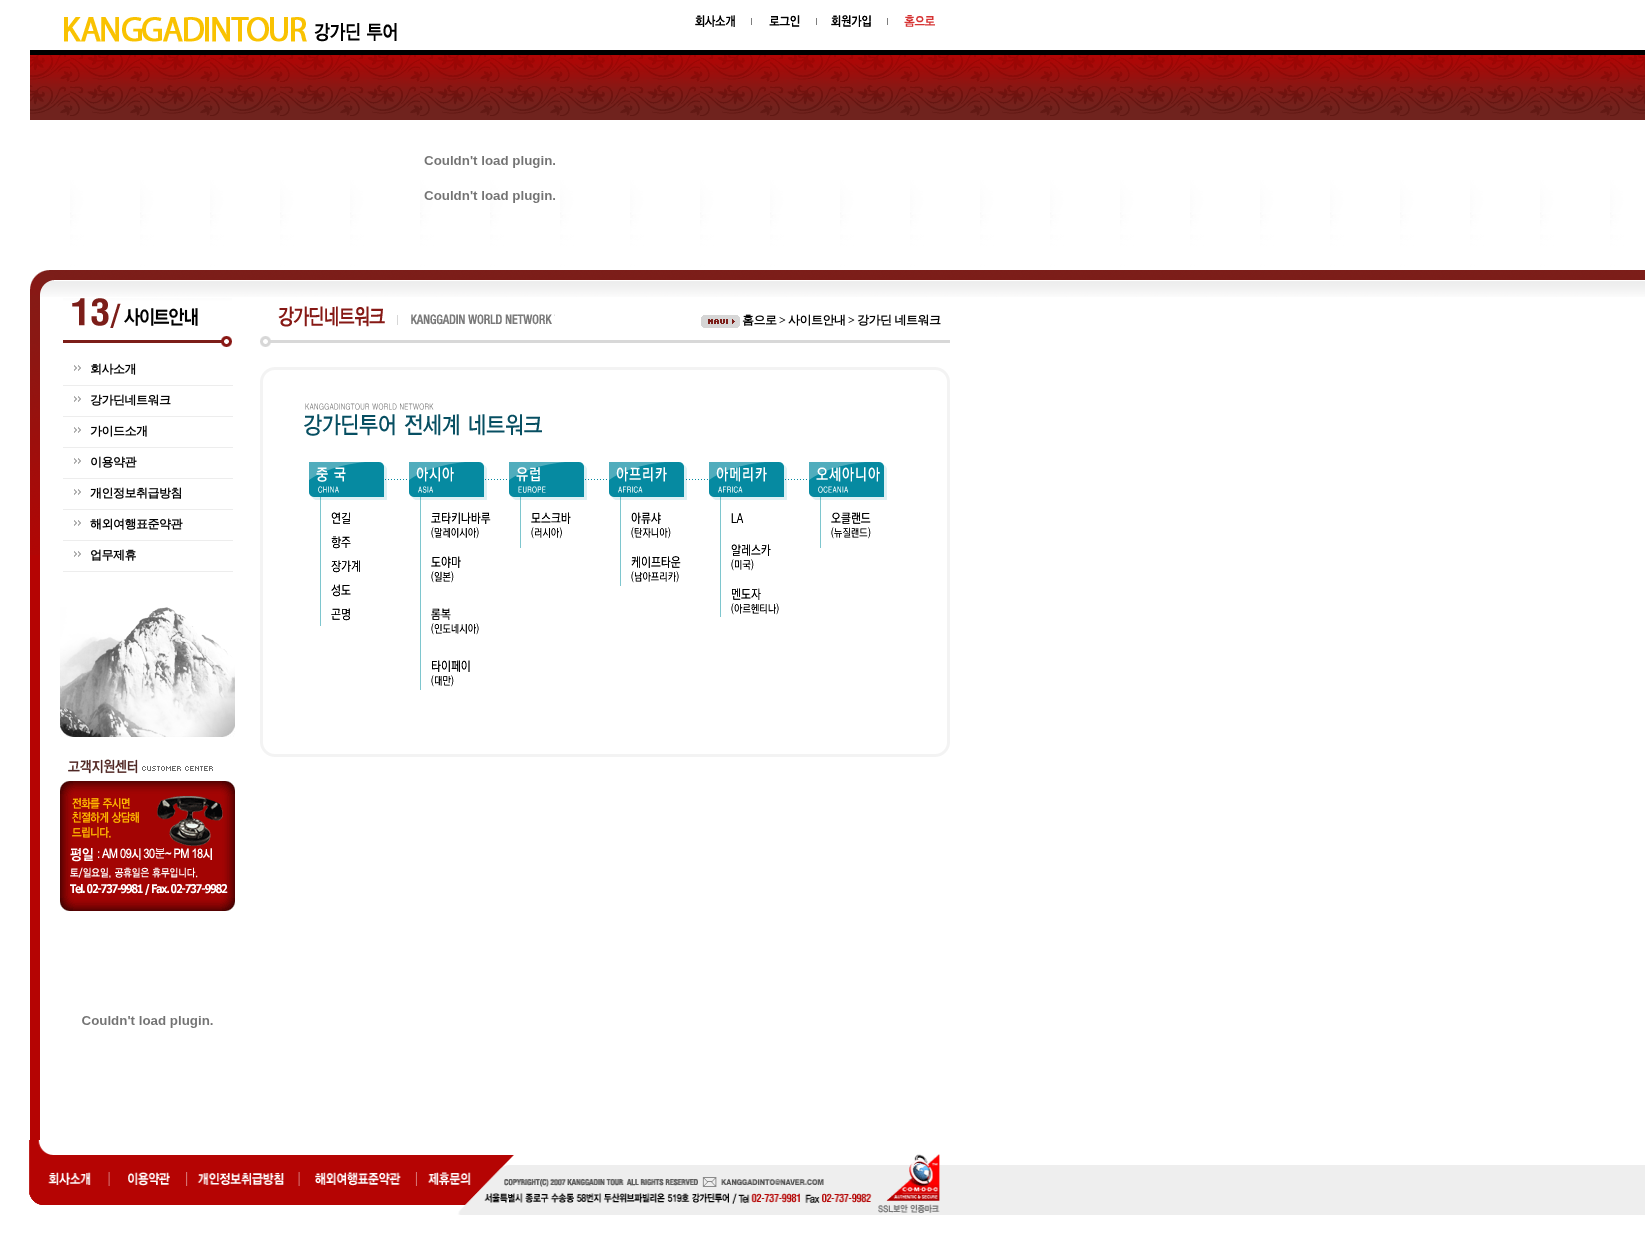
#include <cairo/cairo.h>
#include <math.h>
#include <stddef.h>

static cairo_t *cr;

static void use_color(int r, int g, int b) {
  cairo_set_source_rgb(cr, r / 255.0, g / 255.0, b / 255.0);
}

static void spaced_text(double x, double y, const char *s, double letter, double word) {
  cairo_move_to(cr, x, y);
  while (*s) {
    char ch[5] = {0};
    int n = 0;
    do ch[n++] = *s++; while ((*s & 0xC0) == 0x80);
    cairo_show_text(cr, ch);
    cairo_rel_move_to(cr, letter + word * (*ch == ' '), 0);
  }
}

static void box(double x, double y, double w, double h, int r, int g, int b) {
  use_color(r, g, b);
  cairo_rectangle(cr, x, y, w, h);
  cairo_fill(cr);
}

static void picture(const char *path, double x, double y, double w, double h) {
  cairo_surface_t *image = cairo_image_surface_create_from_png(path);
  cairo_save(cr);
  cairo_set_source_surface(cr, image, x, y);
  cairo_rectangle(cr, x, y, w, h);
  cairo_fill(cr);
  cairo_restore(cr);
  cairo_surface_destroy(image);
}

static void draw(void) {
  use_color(255, 255, 255);
  cairo_paint(cr);
  picture("img_01.png", 30, 50, 1615, 247);
  picture("img_02.png", 424, 156, 131, 12);
  picture("img_03.png", 64, 17, 333, 25);
  picture("img_04.png", 695, 15, 57, 12);
  picture("img_05.png", 769, 15, 48, 12);
  picture("img_06.png", 831, 15, 57, 12);
  picture("img_07.png", 904, 15, 31, 12);
  picture("img_08.png", 424, 191, 131, 12);
  picture("img_09.png", 30, 270, 24, 25);
  box(30, 555, 10, 585, 181, 4, 3);
  picture("img_10.png", 30, 295, 10, 260);
  box(555, 340, 395, 3, 216, 216, 216);
  picture("img_11.png", 260, 306, 295, 41);
  picture("img_12.png", 701, 315, 39, 13);
  picture("img_13.png", 260, 367, 20, 20);
  box(280, 367, 650, 3, 243, 243, 243);
  picture("img_14.png", 930, 367, 20, 20);
  box(260, 387, 3, 350, 243, 243, 243);
  picture("img_15.png", 304, 403, 583, 287);
  box(947, 387, 3, 350, 243, 243, 243);
  picture("img_16.png", 260, 737, 20, 20);
  box(280, 754, 650, 3, 243, 243, 243);
  picture("img_17.png", 930, 737, 20, 20);
  picture("img_18.png", 63, 298, 169, 49);
  picture("img_19.png", 74, 365, 7, 6);
  box(63, 385, 170, 1, 237, 237, 237);
  picture("img_19.png", 74, 396, 7, 6);
  box(63, 416, 170, 1, 237, 237, 237);
  picture("img_19.png", 74, 427, 7, 6);
  box(63, 447, 170, 1, 237, 237, 237);
  picture("img_19.png", 74, 458, 7, 6);
  box(63, 478, 170, 1, 237, 237, 237);
  picture("img_19.png", 74, 489, 7, 6);
  box(63, 509, 170, 1, 237, 237, 237);
  picture("img_19.png", 74, 520, 7, 6);
  box(63, 540, 170, 1, 237, 237, 237);
  picture("img_19.png", 74, 551, 7, 6);
  box(63, 571, 170, 1, 237, 237, 237);
  picture("img_20.png", 60, 607, 175, 130);
  picture("img_21.png", 60, 759, 175, 152);
  picture("img_22.png", 82, 1016, 131, 12);
  box(940, 1165, 705, 50, 238, 238, 238);
  picture("img_23.png", 0, 1140, 940, 75);
  cairo_select_font_face(cr, "WenQuanYi Zen Hei", CAIRO_FONT_SLANT_NORMAL, CAIRO_FONT_WEIGHT_BOLD);
  cairo_set_font_size(cr, 12);
  use_color(0, 0, 0);
  spaced_text(742, 324, "홈으로", -0.5, 0);
  cairo_select_font_face(cr, "Liberation Serif", CAIRO_FONT_SLANT_NORMAL, CAIRO_FONT_WEIGHT_BOLD);
  spaced_text(779, 324, ">", -0.5, 0);
  cairo_select_font_face(cr, "WenQuanYi Zen Hei", CAIRO_FONT_SLANT_NORMAL, CAIRO_FONT_WEIGHT_BOLD);
  spaced_text(788, 324, "사이트안내", -0.5, 0);
  cairo_select_font_face(cr, "Liberation Serif", CAIRO_FONT_SLANT_NORMAL, CAIRO_FONT_WEIGHT_BOLD);
  spaced_text(848, 324, ">", -0.5, 0);
  cairo_select_font_face(cr, "WenQuanYi Zen Hei", CAIRO_FONT_SLANT_NORMAL, CAIRO_FONT_WEIGHT_BOLD);
  spaced_text(857, 324, "강가딘 네트워크", -0.5, 0);
  spaced_text(90, 373, "회사소개", -0.5, 0);
  spaced_text(90, 404, "강가딘네트워크", -0.5, 0);
  spaced_text(90, 435, "가이드소개", -0.5, 0);
  spaced_text(90, 466, "이용약관", -0.5, 0);
  spaced_text(90, 497, "개인정보취급방침", -0.5, 0);
  spaced_text(90, 528, "해외여행표준약관", -0.5, 0);
  spaced_text(90, 559, "업무제휴", -0.5, 0);
}

int main(void) {
  cairo_surface_t *surface = cairo_image_surface_create(CAIRO_FORMAT_RGB24, 1645, 1233);
  cr = cairo_create(surface);
  cairo_font_options_t *options = cairo_font_options_create();
  cairo_font_options_set_hint_metrics(options, CAIRO_HINT_METRICS_OFF);
  cairo_font_options_set_hint_style(options, CAIRO_HINT_STYLE_NONE);
  cairo_set_font_options(cr, options);
  cairo_set_miter_limit(cr, 4);
  draw();
  cairo_surface_write_to_png(surface, "out.png");
  cairo_font_options_destroy(options);
  cairo_destroy(cr);
  cairo_surface_destroy(surface);
  return 0;
}
